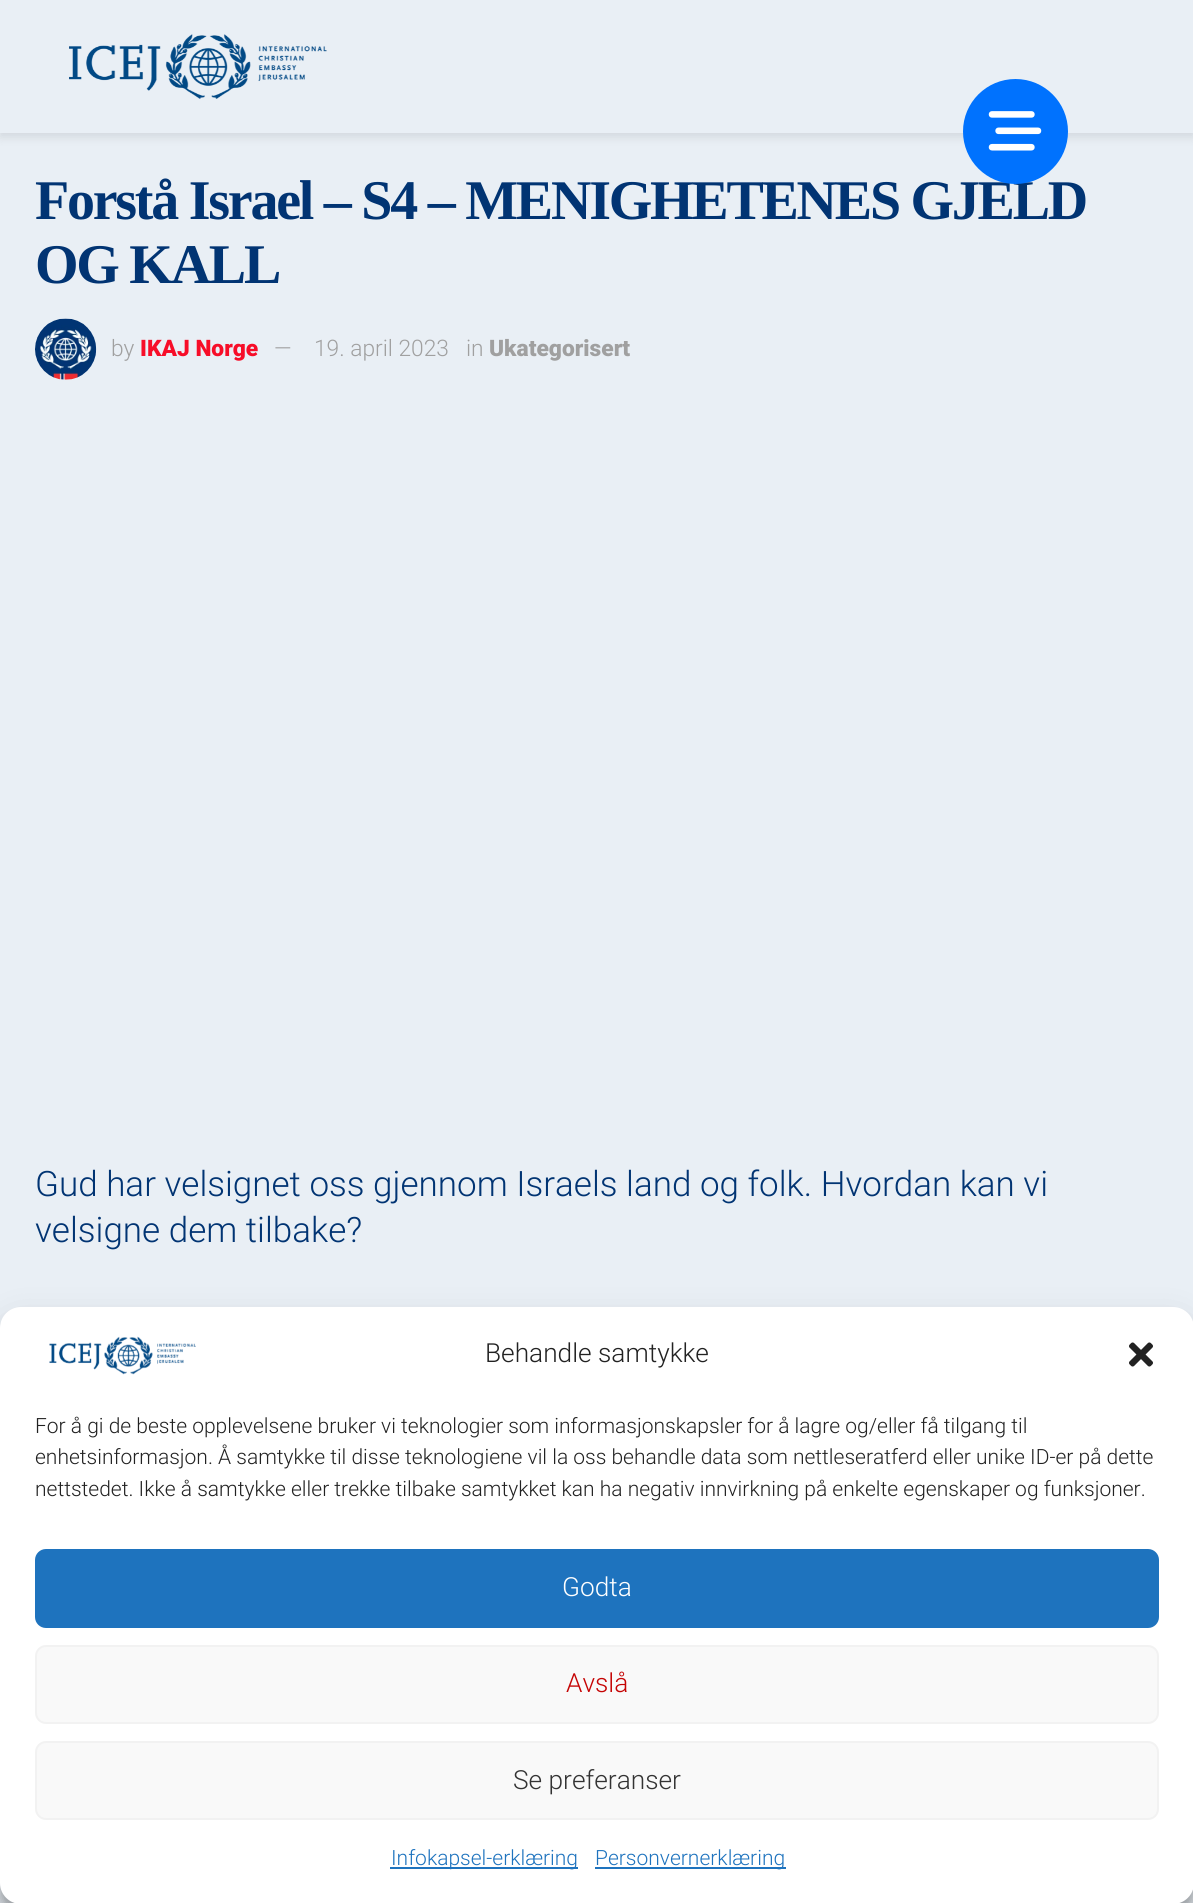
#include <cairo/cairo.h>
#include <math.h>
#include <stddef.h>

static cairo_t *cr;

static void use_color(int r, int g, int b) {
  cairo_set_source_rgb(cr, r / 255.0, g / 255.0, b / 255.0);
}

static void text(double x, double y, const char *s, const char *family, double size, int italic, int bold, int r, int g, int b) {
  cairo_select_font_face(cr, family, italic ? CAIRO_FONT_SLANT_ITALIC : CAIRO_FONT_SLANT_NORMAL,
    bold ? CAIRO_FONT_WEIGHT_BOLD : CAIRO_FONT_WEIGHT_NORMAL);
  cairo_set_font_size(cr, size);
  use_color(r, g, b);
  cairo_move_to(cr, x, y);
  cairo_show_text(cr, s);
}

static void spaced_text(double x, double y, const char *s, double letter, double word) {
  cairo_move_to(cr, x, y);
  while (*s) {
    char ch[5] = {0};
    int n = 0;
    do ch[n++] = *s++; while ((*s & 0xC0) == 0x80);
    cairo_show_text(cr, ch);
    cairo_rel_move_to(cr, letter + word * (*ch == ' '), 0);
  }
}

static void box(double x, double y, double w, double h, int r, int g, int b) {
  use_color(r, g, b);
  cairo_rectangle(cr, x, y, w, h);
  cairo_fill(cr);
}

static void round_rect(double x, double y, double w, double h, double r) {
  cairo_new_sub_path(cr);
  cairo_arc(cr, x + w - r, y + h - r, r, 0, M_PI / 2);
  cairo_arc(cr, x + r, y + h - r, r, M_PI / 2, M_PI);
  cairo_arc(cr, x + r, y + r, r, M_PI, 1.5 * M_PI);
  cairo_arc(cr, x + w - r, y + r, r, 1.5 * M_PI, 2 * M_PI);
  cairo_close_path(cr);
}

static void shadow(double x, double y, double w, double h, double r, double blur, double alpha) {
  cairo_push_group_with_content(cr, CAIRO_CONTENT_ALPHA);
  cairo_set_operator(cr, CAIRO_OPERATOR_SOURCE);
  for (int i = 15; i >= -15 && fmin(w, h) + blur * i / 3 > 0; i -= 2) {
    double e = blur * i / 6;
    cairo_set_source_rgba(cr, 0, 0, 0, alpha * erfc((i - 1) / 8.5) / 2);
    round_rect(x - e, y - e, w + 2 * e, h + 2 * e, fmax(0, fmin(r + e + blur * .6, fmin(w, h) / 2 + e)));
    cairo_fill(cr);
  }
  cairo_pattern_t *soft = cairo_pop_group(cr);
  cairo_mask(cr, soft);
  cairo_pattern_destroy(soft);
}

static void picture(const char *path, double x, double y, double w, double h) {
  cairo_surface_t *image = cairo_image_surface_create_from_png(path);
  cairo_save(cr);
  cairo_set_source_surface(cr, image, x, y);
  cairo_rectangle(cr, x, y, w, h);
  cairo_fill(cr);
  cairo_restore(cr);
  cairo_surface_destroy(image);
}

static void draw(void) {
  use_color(233, 239, 245);
  cairo_paint(cr);
  use_color(0, 0, 0);
  shadow(0, 4, 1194, 133, 0, 5, 0.1);
  box(0, 0, 1193, 133, 233, 239, 245);
  picture("img_02.png", 69, 34, 258, 65);
  picture("img_03.png", 35, 318, 62, 62);
  use_color(0, 0, 0);
  shadow(0, 1318, 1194, 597, 21, 5, 0.23);
  shadow(0, 1325, 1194, 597, 21, 17.5, 0.19);
  use_color(255, 255, 255);
  round_rect(0, 1307, 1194, 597, 21);
  cairo_fill(cr);
  picture("img_04.png", 49, 1336, 147, 39);
  picture("img_05.png", 1129, 1342, 24, 25);
  use_color(30, 115, 190);
  round_rect(36, 1550, 1122, 77, 10);
  cairo_fill_preserve(cr);
  cairo_stroke(cr);
  use_color(249, 249, 249);
  round_rect(36, 1646, 1122, 77, 10);
  cairo_fill_preserve(cr);
  use_color(242, 242, 242);
  cairo_stroke(cr);
  use_color(249, 249, 249);
  round_rect(36, 1742, 1122, 77, 10);
  cairo_fill_preserve(cr);
  use_color(242, 242, 242);
  cairo_stroke(cr);
  box(390, 1867, 188, 2, 30, 115, 190);
  box(595, 1867, 191, 2, 30, 115, 190);
  cairo_select_font_face(cr, "Liberation Serif", CAIRO_FONT_SLANT_NORMAL, CAIRO_FONT_WEIGHT_BOLD);
  cairo_set_font_size(cr, 56);
  use_color(1, 52, 115);
  spaced_text(35, 219, "Forstå Israel – S4 – MENIGHETENES GJELD", -2.25, 0);
  use_color(0, 114, 254);
  cairo_new_path(cr);
  cairo_arc(cr, 1015.5, 131.5, 52.5, 0, 2 * M_PI);
  cairo_fill(cr);
  picture("img_01.png", 988, 111, 54, 40);
  use_color(1, 52, 115);
  spaced_text(35, 283, "OG KALL", -2.25, 0);
  text(111, 356, "by", "Roboto Light", 22.75, 0, 0, 160, 160, 160);
  text(140, 356, "IKAJ Norge", "Roboto Black", 22.75, 0, 0, 247, 13, 40);
  text(274, 356, "—", "Roboto Light", 22.75, 0, 0, 160, 160, 160);
  text(314, 356, "19. april 2023", "Roboto Light", 22.75, 0, 0, 160, 160, 160);
  text(466, 356, "in", "Roboto Light", 22.75, 0, 0, 160, 160, 160);
  text(489, 356, "Ukategorisert", "Roboto Black", 22.75, 0, 0, 160, 160, 160);
  text(35, 1196, "Gud har velsignet oss gjennom Israels land og folk. Hvordan kan vi", "Roboto Light", 35, 0, 0, 1, 52, 115);
  text(35, 1242, "velsigne dem tilbake?", "Roboto Light", 35, 0, 0, 1, 52, 115);
  text(485, 1362, "Behandle samtykke", "Roboto Light", 26.25, 0, 0, 34, 34, 34);
  text(35, 1433, "For å gi de beste opplevelsene bruker vi teknologier som informasjonskapsler for å lagre og/eller få tilgang til", "Roboto Light", 21, 0, 0, 34, 34, 34);
  text(35, 1464, "enhetsinformasjon. Å samtykke til disse teknologiene vil la oss behandle data som nettleseratferd eller unike ID-er på dette", "Roboto Light", 21, 0, 0, 34, 34, 34);
  text(35, 1496, "nettstedet. Ikke å samtykke eller trekke tilbake samtykket kan ha negativ innvirkning på enkelte egenskaper og funksjoner.", "Roboto Light", 21, 0, 0, 34, 34, 34);
  text(562, 1596, "Godta", "Roboto Light", 26.25, 0, 0, 255, 255, 255);
  text(566, 1692, "Avslå", "Roboto Light", 26.25, 0, 0, 197, 4, 4);
  text(513, 1789, "Se preferanser", "Roboto Light", 26.25, 0, 0, 51, 51, 51);
  text(391, 1865, "Infokapsel-erklæring", "Roboto Light", 21, 0, 0, 30, 115, 190);
  text(595, 1865, "Personvernerklæring", "Roboto Light", 21, 0, 0, 30, 115, 190);
}

int main(void) {
  cairo_surface_t *surface = cairo_image_surface_create(CAIRO_FORMAT_RGB24, 1193, 1903);
  cr = cairo_create(surface);
  cairo_font_options_t *options = cairo_font_options_create();
  cairo_font_options_set_hint_metrics(options, CAIRO_HINT_METRICS_OFF);
  cairo_font_options_set_hint_style(options, CAIRO_HINT_STYLE_NONE);
  cairo_set_font_options(cr, options);
  cairo_set_miter_limit(cr, 4);
  draw();
  cairo_surface_write_to_png(surface, "out.png");
  cairo_font_options_destroy(options);
  cairo_destroy(cr);
  cairo_surface_destroy(surface);
  return 0;
}
